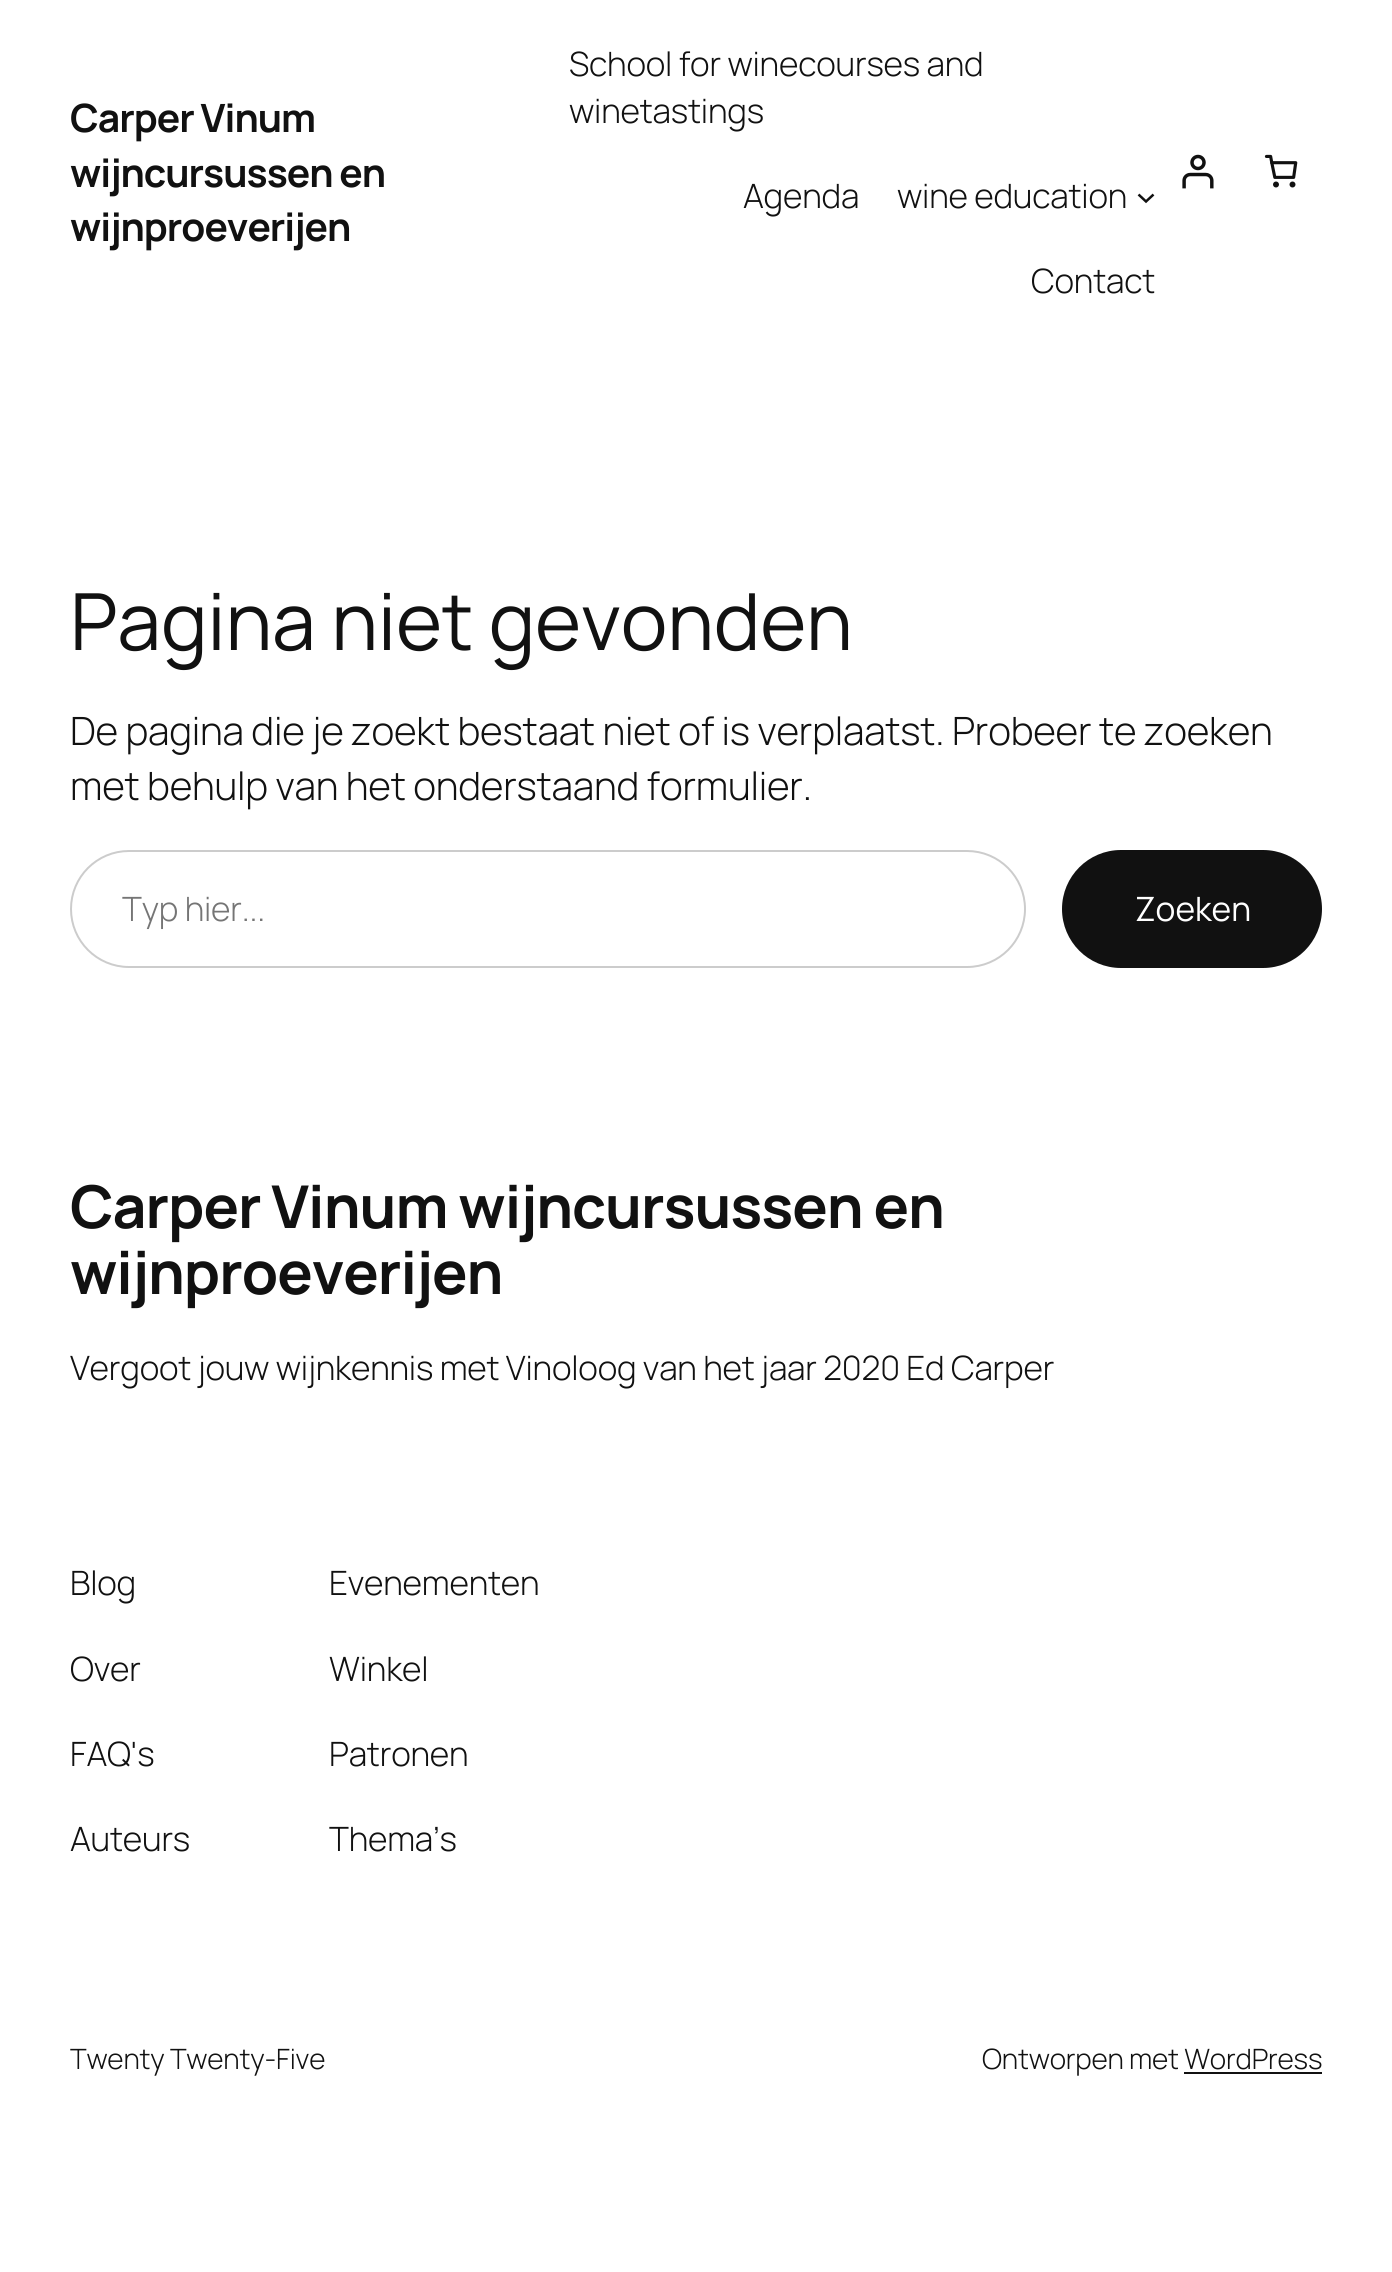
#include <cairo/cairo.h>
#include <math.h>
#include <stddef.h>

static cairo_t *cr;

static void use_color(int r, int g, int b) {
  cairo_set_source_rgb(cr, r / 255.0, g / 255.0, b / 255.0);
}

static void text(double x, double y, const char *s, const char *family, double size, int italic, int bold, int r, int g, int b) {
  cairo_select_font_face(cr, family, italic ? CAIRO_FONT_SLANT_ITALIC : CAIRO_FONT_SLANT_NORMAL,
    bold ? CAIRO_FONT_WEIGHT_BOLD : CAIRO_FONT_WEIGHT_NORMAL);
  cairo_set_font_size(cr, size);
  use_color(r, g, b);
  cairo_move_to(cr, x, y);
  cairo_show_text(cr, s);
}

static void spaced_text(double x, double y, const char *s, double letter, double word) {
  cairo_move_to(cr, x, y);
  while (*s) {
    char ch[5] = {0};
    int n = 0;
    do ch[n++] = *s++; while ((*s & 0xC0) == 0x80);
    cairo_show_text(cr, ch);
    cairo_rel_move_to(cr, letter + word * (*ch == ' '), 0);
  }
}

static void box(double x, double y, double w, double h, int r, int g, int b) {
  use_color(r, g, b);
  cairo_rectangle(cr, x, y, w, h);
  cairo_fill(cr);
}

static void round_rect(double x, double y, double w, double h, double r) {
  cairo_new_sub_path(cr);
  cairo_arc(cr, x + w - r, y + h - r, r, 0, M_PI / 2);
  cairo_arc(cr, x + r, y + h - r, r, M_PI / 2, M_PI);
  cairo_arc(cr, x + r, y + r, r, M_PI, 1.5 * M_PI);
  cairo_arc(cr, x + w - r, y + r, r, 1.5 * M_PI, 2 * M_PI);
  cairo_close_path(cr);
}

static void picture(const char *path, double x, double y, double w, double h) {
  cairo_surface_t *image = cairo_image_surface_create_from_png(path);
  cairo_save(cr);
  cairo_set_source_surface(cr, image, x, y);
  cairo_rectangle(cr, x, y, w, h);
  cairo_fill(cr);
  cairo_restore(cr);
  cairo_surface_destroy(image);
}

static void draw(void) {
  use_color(255, 255, 255);
  cairo_paint(cr);
  cairo_new_path(cr);
  cairo_move_to(cr, 1138.5, 194.5);
  cairo_line_to(cr, 1146, 201.5);
  cairo_line_to(cr, 1153.5, 194.5);
  use_color(17, 17, 17);
  cairo_set_line_width(cr, 2.5);
  cairo_stroke(cr);
  picture("img_01.png", 1182, 154, 32, 35);
  picture("img_02.png", 1264, 154, 34, 34);
  round_rect(71, 851, 954, 116, 58);
  use_color(204, 204, 204);
  cairo_set_line_width(cr, 2);
  cairo_stroke(cr);
  use_color(17, 17, 17);
  round_rect(1062, 850, 260, 118, 59);
  cairo_fill(cr);
  box(1184, 2072, 138, 2, 17, 17, 17);
  cairo_select_font_face(cr, "Manrope", CAIRO_FONT_SLANT_NORMAL, CAIRO_FONT_WEIGHT_BOLD);
  cairo_set_font_size(cr, 38.95);
  spaced_text(70, 132, "Carper Vinum", -1, 0);
  spaced_text(70, 187, "wijncursussen en", -1, 0);
  spaced_text(70, 241, "wijnproeverijen", -1, 0);
  cairo_select_font_face(cr, "Manrope Light", CAIRO_FONT_SLANT_NORMAL, CAIRO_FONT_WEIGHT_NORMAL);
  cairo_set_font_size(cr, 33.5);
  spaced_text(569, 76, "School for winecourses and", -0.2, 0);
  spaced_text(569, 123, "winetastings", -0.2, 0);
  spaced_text(743, 208, "Agenda", -0.2, 0);
  spaced_text(897, 208, "wine education", -0.2, 0);
  spaced_text(1031, 293, "Contact", -0.2, 0);
  cairo_select_font_face(cr, "Manrope", CAIRO_FONT_SLANT_NORMAL, CAIRO_FONT_WEIGHT_NORMAL);
  cairo_set_font_size(cr, 78.75);
  spaced_text(70, 650, "Pagina niet gevonden", -0.2, 0);
  cairo_select_font_face(cr, "Manrope Light", CAIRO_FONT_SLANT_NORMAL, CAIRO_FONT_WEIGHT_NORMAL);
  cairo_set_font_size(cr, 38.95);
  spaced_text(70, 745, "De pagina die je zoekt bestaat niet of is verplaatst. Probeer te zoeken", -0.2, 0);
  spaced_text(70, 800, "met behulp van het onderstaand formulier.", -0.2, 0);
  cairo_set_font_size(cr, 33.5);
  use_color(117, 117, 117);
  spaced_text(122, 921, "Typ hier...", -0.2, 0);
  text(1135, 921, "Zoeken", "Manrope", 33.5, 0, 0, 255, 255, 255);
  cairo_select_font_face(cr, "Manrope", CAIRO_FONT_SLANT_NORMAL, CAIRO_FONT_WEIGHT_BOLD);
  cairo_set_font_size(cr, 59);
  use_color(17, 17, 17);
  spaced_text(70, 1228, "Carper Vinum wijncursussen en", -1, 0);
  spaced_text(70, 1294, "wijnproeverijen", -1, 0);
  cairo_select_font_face(cr, "Manrope Light", CAIRO_FONT_SLANT_NORMAL, CAIRO_FONT_WEIGHT_NORMAL);
  cairo_set_font_size(cr, 33.5);
  spaced_text(70, 1380, "Vergoot jouw wijnkennis met Vinoloog van het jaar 2020 Ed Carper", -0.2, 0);
  spaced_text(70, 1595, "Blog", -0.2, 0);
  spaced_text(70, 1681, "Over", -0.2, 0);
  spaced_text(70, 1766, "FAQ's", -0.2, 0);
  spaced_text(70, 1851, "Auteurs", -0.2, 0);
  spaced_text(329, 1595, "Evenementen", -0.2, 0);
  spaced_text(329, 1681, "Winkel", -0.2, 0);
  spaced_text(329, 1766, "Patronen", -0.2, 0);
  spaced_text(329, 1851, "Thema’s", -0.2, 0);
  cairo_set_font_size(cr, 28);
  spaced_text(70, 2069, "Twenty Twenty-Five", -0.2, 0);
  spaced_text(982, 2069, "Ontworpen met WordPress", -0.2, 0);
}

int main(void) {
  cairo_surface_t *surface = cairo_image_surface_create(CAIRO_FORMAT_RGB24, 1392, 2272);
  cr = cairo_create(surface);
  cairo_font_options_t *options = cairo_font_options_create();
  cairo_font_options_set_hint_metrics(options, CAIRO_HINT_METRICS_OFF);
  cairo_font_options_set_hint_style(options, CAIRO_HINT_STYLE_NONE);
  cairo_set_font_options(cr, options);
  cairo_set_miter_limit(cr, 4);
  draw();
  cairo_surface_write_to_png(surface, "out.png");
  cairo_font_options_destroy(options);
  cairo_destroy(cr);
  cairo_surface_destroy(surface);
  return 0;
}
